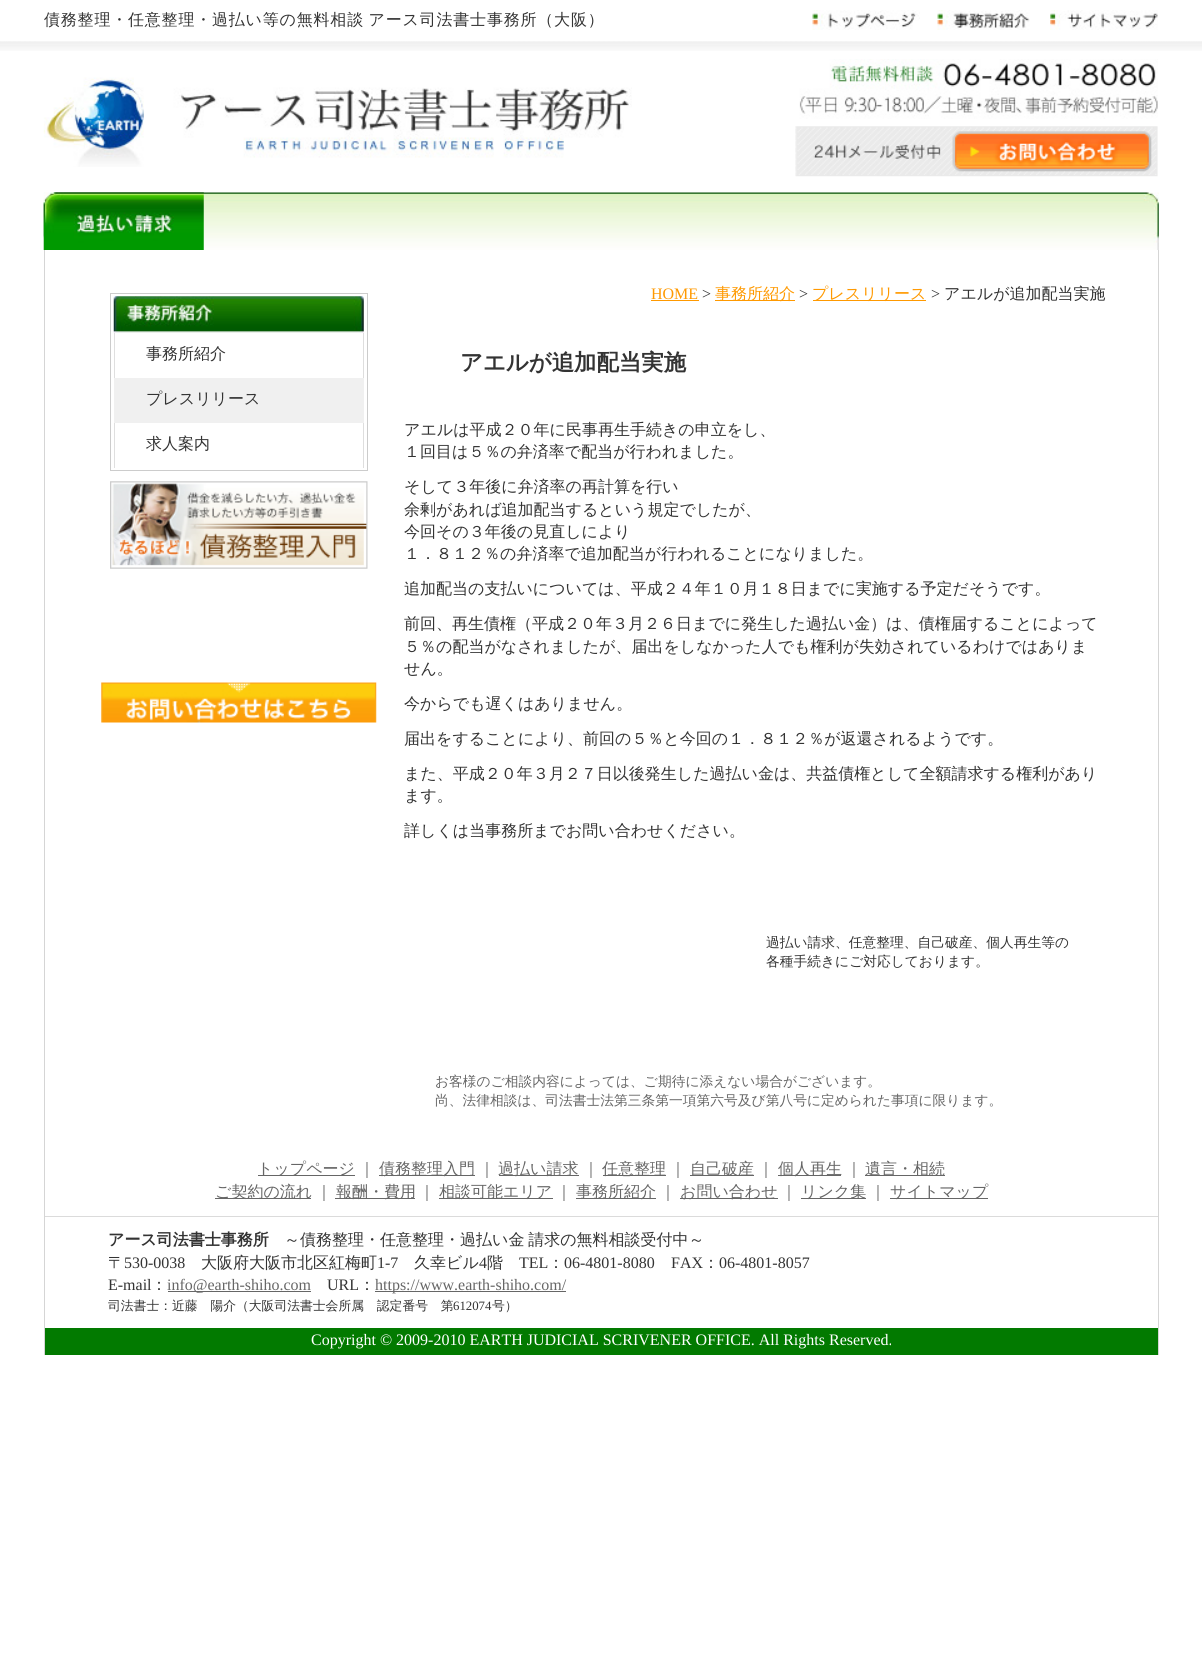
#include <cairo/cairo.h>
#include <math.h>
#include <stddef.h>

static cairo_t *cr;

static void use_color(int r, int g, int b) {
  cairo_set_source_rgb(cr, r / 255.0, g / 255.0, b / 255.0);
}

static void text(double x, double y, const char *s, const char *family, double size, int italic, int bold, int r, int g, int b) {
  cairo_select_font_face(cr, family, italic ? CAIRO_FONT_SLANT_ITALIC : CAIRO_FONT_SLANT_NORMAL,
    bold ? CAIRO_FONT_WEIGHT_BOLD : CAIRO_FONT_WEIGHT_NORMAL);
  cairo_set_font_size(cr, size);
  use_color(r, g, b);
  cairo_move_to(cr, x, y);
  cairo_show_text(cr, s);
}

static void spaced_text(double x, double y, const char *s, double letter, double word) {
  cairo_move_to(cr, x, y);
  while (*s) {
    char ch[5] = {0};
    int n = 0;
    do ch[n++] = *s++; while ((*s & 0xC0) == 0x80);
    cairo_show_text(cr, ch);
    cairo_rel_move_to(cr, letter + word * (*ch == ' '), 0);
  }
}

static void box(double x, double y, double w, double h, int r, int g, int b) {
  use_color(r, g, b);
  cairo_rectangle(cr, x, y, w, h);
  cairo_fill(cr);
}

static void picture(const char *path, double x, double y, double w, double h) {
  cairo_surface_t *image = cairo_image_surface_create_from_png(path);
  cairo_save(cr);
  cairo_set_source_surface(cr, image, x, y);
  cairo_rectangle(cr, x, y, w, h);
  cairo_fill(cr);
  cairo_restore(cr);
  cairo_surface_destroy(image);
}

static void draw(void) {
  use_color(255, 255, 255);
  cairo_paint(cr);
  picture("img_01.png", 0, 41, 1202, 10);
  picture("img_02.png", 812, 10, 108, 20);
  picture("img_03.png", 937, 10, 93, 20);
  picture("img_04.png", 1050, 10, 108, 20);
  picture("img_05.png", 43, 77, 589, 90);
  picture("img_06.png", 799, 59, 359, 60);
  picture("img_07.png", 795, 126, 363, 51);
  picture("img_08.png", 43, 192, 1116, 58);
  picture("img_09.png", 43, 192, 161, 58);
  box(1158, 250, 1, 1105, 213, 213, 213);
  box(44, 250, 1, 1105, 213, 213, 213);
  cairo_rectangle(cr, 110.5, 293.5, 257, 177);
  use_color(204, 204, 204);
  cairo_set_line_width(cr, 1);
  cairo_stroke(cr);
  picture("img_10.png", 113, 296, 251, 37);
  box(363, 333, 1, 45, 222, 222, 222);
  box(114, 333, 1, 45, 223, 223, 223);
  box(114, 378, 250, 45, 240, 240, 240);
  box(363, 423, 1, 45, 222, 222, 222);
  box(114, 423, 1, 45, 223, 223, 223);
  picture("img_11.png", 110, 481, 258, 88);
  picture("img_12.png", 101, 682, 276, 41);
  box(651, 300, 48, 1, 255, 153, 0);
  box(715, 300, 80, 1, 255, 153, 0);
  box(813, 300, 113, 1, 255, 153, 0);
  box(258, 1175, 97, 1, 102, 102, 102);
  box(379, 1175, 96, 1, 102, 102, 102);
  box(499, 1175, 80, 1, 102, 102, 102);
  box(603, 1175, 63, 1, 102, 102, 102);
  box(690, 1175, 64, 1, 102, 102, 102);
  box(778, 1175, 63, 1, 102, 102, 102);
  box(865, 1175, 80, 1, 102, 102, 102);
  box(215, 1198, 96, 1, 102, 102, 102);
  box(335, 1198, 80, 1, 102, 102, 102);
  box(439, 1198, 114, 1, 102, 102, 102);
  box(576, 1198, 80, 1, 102, 102, 102);
  box(680, 1198, 98, 1, 102, 102, 102);
  box(801, 1198, 65, 1, 102, 102, 102);
  box(890, 1198, 98, 1, 102, 102, 102);
  box(45, 1216, 1113, 1, 219, 219, 219);
  box(168, 1291, 143, 1, 102, 102, 102);
  box(375, 1291, 191, 1, 102, 102, 102);
  box(45, 1328, 1113, 27, 2, 122, 0);
  cairo_select_font_face(cr, "WenQuanYi Zen Hei Medium", CAIRO_FONT_SLANT_NORMAL, CAIRO_FONT_WEIGHT_NORMAL);
  cairo_set_font_size(cr, 16);
  use_color(51, 51, 51);
  spaced_text(44, 25, "債務整理・任意整理・過払い等の無料相談 アース司法書士事務所（大阪）", 0.8, -1);
  text(146, 359, "事務所紹介", "WenQuanYi Zen Hei Medium", 16, 0, 0, 51, 51, 51);
  text(146, 404, "プレスリリース", "WenQuanYi Zen Hei Medium", 16, 0, 0, 51, 51, 51);
  text(146, 449, "求人案内", "WenQuanYi Zen Hei Medium", 16, 0, 0, 51, 51, 51);
  text(651, 299, "HOME", "Liberation Serif", 16, 0, 0, 255, 153, 0);
  text(702, 299, ">", "Liberation Serif", 16, 0, 0, 51, 51, 51);
  text(715, 299, "事務所紹介", "WenQuanYi Zen Hei Medium", 16, 0, 0, 255, 153, 0);
  text(799, 299, ">", "Liberation Serif", 16, 0, 0, 51, 51, 51);
  text(812, 299, "プレスリリース", "WenQuanYi Zen Hei Medium", 16, 0, 0, 255, 153, 0);
  text(931, 299, ">", "Liberation Serif", 16, 0, 0, 51, 51, 51);
  text(944, 299, "アエルが追加配当実施", "WenQuanYi Zen Hei Medium", 16, 0, 0, 51, 51, 51);
  text(460, 370, "アエルが追加配当実施", "WenQuanYi Zen Hei", 22.4, 0, 1, 51, 51, 51);
  text(404, 435, "アエルは平成２０年に民事再生手続きの申立をし、", "WenQuanYi Zen Hei Medium", 16, 0, 0, 51, 51, 51);
  text(404, 457, "１回目は５％の弁済率で配当が行われました。", "WenQuanYi Zen Hei Medium", 16, 0, 0, 51, 51, 51);
  text(404, 492, "そして３年後に弁済率の再計算を行い", "WenQuanYi Zen Hei Medium", 16, 0, 0, 51, 51, 51);
  text(404, 515, "余剰があれば追加配当するという規定でしたが、", "WenQuanYi Zen Hei Medium", 16, 0, 0, 51, 51, 51);
  text(404, 537, "今回その３年後の見直しにより", "WenQuanYi Zen Hei Medium", 16, 0, 0, 51, 51, 51);
  text(404, 559, "１．８１２％の弁済率で追加配当が行われることになりました。", "WenQuanYi Zen Hei Medium", 16, 0, 0, 51, 51, 51);
  text(404, 594, "追加配当の支払いについては、平成２４年１０月１８日までに実施する予定だそうです。", "WenQuanYi Zen Hei Medium", 16, 0, 0, 51, 51, 51);
  text(404, 629, "前回、再生債権（平成２０年３月２６日までに発生した過払い金）は、債権届することによって", "WenQuanYi Zen Hei Medium", 16, 0, 0, 51, 51, 51);
  text(404, 652, "５％の配当がなされましたが、届出をしなかった人でも権利が失効されているわけではありま", "WenQuanYi Zen Hei Medium", 16, 0, 0, 51, 51, 51);
  text(404, 674, "せん。", "WenQuanYi Zen Hei Medium", 16, 0, 0, 51, 51, 51);
  text(404, 709, "今からでも遅くはありません。", "WenQuanYi Zen Hei Medium", 16, 0, 0, 51, 51, 51);
  text(404, 744, "届出をすることにより、前回の５％と今回の１．８１２％が返還されるようです。", "WenQuanYi Zen Hei Medium", 16, 0, 0, 51, 51, 51);
  text(404, 779, "また、平成２０年３月２７日以後発生した過払い金は、共益債権として全額請求する権利があり", "WenQuanYi Zen Hei Medium", 16, 0, 0, 51, 51, 51);
  text(404, 801, "ます。", "WenQuanYi Zen Hei Medium", 16, 0, 0, 51, 51, 51);
  text(404, 836, "詳しくは当事務所までお問い合わせください。", "WenQuanYi Zen Hei Medium", 16, 0, 0, 51, 51, 51);
  text(766, 947, "過払い請求、任意整理、自己破産、個人再生等の", "WenQuanYi Zen Hei Medium", 13.75, 0, 0, 51, 51, 51);
  text(766, 966, "各種手続きにご対応しております。", "WenQuanYi Zen Hei Medium", 13.75, 0, 0, 51, 51, 51);
  text(435, 1086, "お客様のご相談内容によっては、ご期待に添えない場合がございます。", "WenQuanYi Zen Hei Medium", 13.75, 0, 0, 102, 102, 102);
  text(435, 1105, "尚、法律相談は、司法書士法第三条第一項第六号及び第八号に定められた事項に限ります。", "WenQuanYi Zen Hei Medium", 13.75, 0, 0, 102, 102, 102);
  text(257, 1174, "トップページ", "WenQuanYi Zen Hei Medium", 16, 0, 0, 102, 102, 102);
  text(359, 1174, "｜", "WenQuanYi Zen Hei Medium", 16, 0, 0, 102, 102, 102);
  text(379, 1174, "債務整理入門", "WenQuanYi Zen Hei Medium", 16, 0, 0, 102, 102, 102);
  text(479, 1174, "｜", "WenQuanYi Zen Hei Medium", 16, 0, 0, 102, 102, 102);
  text(498, 1174, "過払い請求", "WenQuanYi Zen Hei Medium", 16, 0, 0, 102, 102, 102);
  text(583, 1174, "｜", "WenQuanYi Zen Hei Medium", 16, 0, 0, 102, 102, 102);
  text(602, 1174, "任意整理", "WenQuanYi Zen Hei Medium", 16, 0, 0, 102, 102, 102);
  text(670, 1174, "｜", "WenQuanYi Zen Hei Medium", 16, 0, 0, 102, 102, 102);
  text(690, 1174, "自己破産", "WenQuanYi Zen Hei Medium", 16, 0, 0, 102, 102, 102);
  text(758, 1174, "｜", "WenQuanYi Zen Hei Medium", 16, 0, 0, 102, 102, 102);
  text(778, 1174, "個人再生", "WenQuanYi Zen Hei Medium", 16, 0, 0, 102, 102, 102);
  text(846, 1174, "｜", "WenQuanYi Zen Hei Medium", 16, 0, 0, 102, 102, 102);
  text(865, 1174, "遺言・相続", "WenQuanYi Zen Hei Medium", 16, 0, 0, 102, 102, 102);
  text(215, 1197, "ご契約の流れ", "WenQuanYi Zen Hei Medium", 16, 0, 0, 102, 102, 102);
  text(316, 1197, "｜", "WenQuanYi Zen Hei Medium", 16, 0, 0, 102, 102, 102);
  text(336, 1197, "報酬・費用", "WenQuanYi Zen Hei Medium", 16, 0, 0, 102, 102, 102);
  text(419, 1197, "｜", "WenQuanYi Zen Hei Medium", 16, 0, 0, 102, 102, 102);
  text(439, 1197, "相談可能エリア", "WenQuanYi Zen Hei Medium", 16, 0, 0, 102, 102, 102);
  text(556, 1197, "｜", "WenQuanYi Zen Hei Medium", 16, 0, 0, 102, 102, 102);
  text(576, 1197, "事務所紹介", "WenQuanYi Zen Hei Medium", 16, 0, 0, 102, 102, 102);
  text(660, 1197, "｜", "WenQuanYi Zen Hei Medium", 16, 0, 0, 102, 102, 102);
  text(680, 1197, "お問い合わせ", "WenQuanYi Zen Hei Medium", 16, 0, 0, 102, 102, 102);
  text(781, 1197, "｜", "WenQuanYi Zen Hei Medium", 16, 0, 0, 102, 102, 102);
  text(801, 1197, "リンク集", "WenQuanYi Zen Hei Medium", 16, 0, 0, 102, 102, 102);
  text(870, 1197, "｜", "WenQuanYi Zen Hei Medium", 16, 0, 0, 102, 102, 102);
  text(890, 1197, "サイトマップ", "WenQuanYi Zen Hei Medium", 16, 0, 0, 102, 102, 102);
  text(108, 1245, "アース司法書士事務所", "WenQuanYi Zen Hei", 16, 0, 1, 51, 51, 51);
  cairo_select_font_face(cr, "WenQuanYi Zen Hei Medium", CAIRO_FONT_SLANT_NORMAL, CAIRO_FONT_WEIGHT_NORMAL);
  spaced_text(284, 1245, "～債務整理・任意整理・過払い金 請求の無料相談受付中～", 0, -1);
  text(108, 1268, "〒", "WenQuanYi Zen Hei Medium", 16, 0, 0, 51, 51, 51);
  text(124, 1268, "530-0038", "Liberation Serif", 16, 0, 0, 51, 51, 51);
  text(201, 1268, "大阪府大阪市北区紅梅町", "WenQuanYi Zen Hei Medium", 16, 0, 0, 51, 51, 51);
  text(377, 1268, "1-7", "Liberation Serif", 16, 0, 0, 51, 51, 51);
  text(414, 1268, "久幸ビル", "WenQuanYi Zen Hei Medium", 16, 0, 0, 51, 51, 51);
  text(479, 1268, "4", "Liberation Serif", 16, 0, 0, 51, 51, 51);
  text(487, 1268, "階", "WenQuanYi Zen Hei Medium", 16, 0, 0, 51, 51, 51);
  text(519, 1268, "TEL", "Liberation Serif", 16, 0, 0, 51, 51, 51);
  text(548, 1268, "：", "WenQuanYi Zen Hei Medium", 16, 0, 0, 51, 51, 51);
  text(564, 1268, "06-4801-8080", "Liberation Serif", 16, 0, 0, 51, 51, 51);
  text(671, 1268, "FAX", "Liberation Serif", 16, 0, 0, 51, 51, 51);
  text(703, 1268, "：", "WenQuanYi Zen Hei Medium", 16, 0, 0, 51, 51, 51);
  text(719, 1268, "06-4801-8057", "Liberation Serif", 16, 0, 0, 51, 51, 51);
  text(108, 1290, "E-mail", "Liberation Serif", 16, 0, 0, 51, 51, 51);
  text(151, 1290, "：", "WenQuanYi Zen Hei Medium", 16, 0, 0, 51, 51, 51);
  text(167, 1290, "info@earth-shiho.com", "Liberation Serif", 16, 0, 0, 102, 102, 102);
  text(327, 1290, "URL", "Liberation Serif", 16, 0, 0, 51, 51, 51);
  text(359, 1290, "：", "WenQuanYi Zen Hei Medium", 16, 0, 0, 51, 51, 51);
  text(375, 1290, "https://www.earth-shiho.com/", "Liberation Serif", 16, 0, 0, 102, 102, 102);
  text(108, 1310, "司法書士：近藤　陽介（大阪司法書士会所属　認定番号　第", "WenQuanYi Zen Hei Medium", 12.8, 0, 0, 51, 51, 51);
  text(453, 1310, "612074", "Liberation Serif", 12.8, 0, 0, 51, 51, 51);
  text(492, 1310, "号）", "WenQuanYi Zen Hei Medium", 12.8, 0, 0, 51, 51, 51);
  text(311, 1345, "Copyright © 2009-2010 EARTH JUDICIAL SCRIVENER OFFICE. All Rights Reserved.", "Liberation Serif", 16, 0, 0, 255, 255, 255);
}

int main(void) {
  cairo_surface_t *surface = cairo_image_surface_create(CAIRO_FORMAT_RGB24, 1202, 1675);
  cr = cairo_create(surface);
  cairo_font_options_t *options = cairo_font_options_create();
  cairo_font_options_set_hint_metrics(options, CAIRO_HINT_METRICS_OFF);
  cairo_font_options_set_hint_style(options, CAIRO_HINT_STYLE_NONE);
  cairo_set_font_options(cr, options);
  cairo_set_miter_limit(cr, 4);
  draw();
  cairo_surface_write_to_png(surface, "out.png");
  cairo_font_options_destroy(options);
  cairo_destroy(cr);
  cairo_surface_destroy(surface);
  return 0;
}
